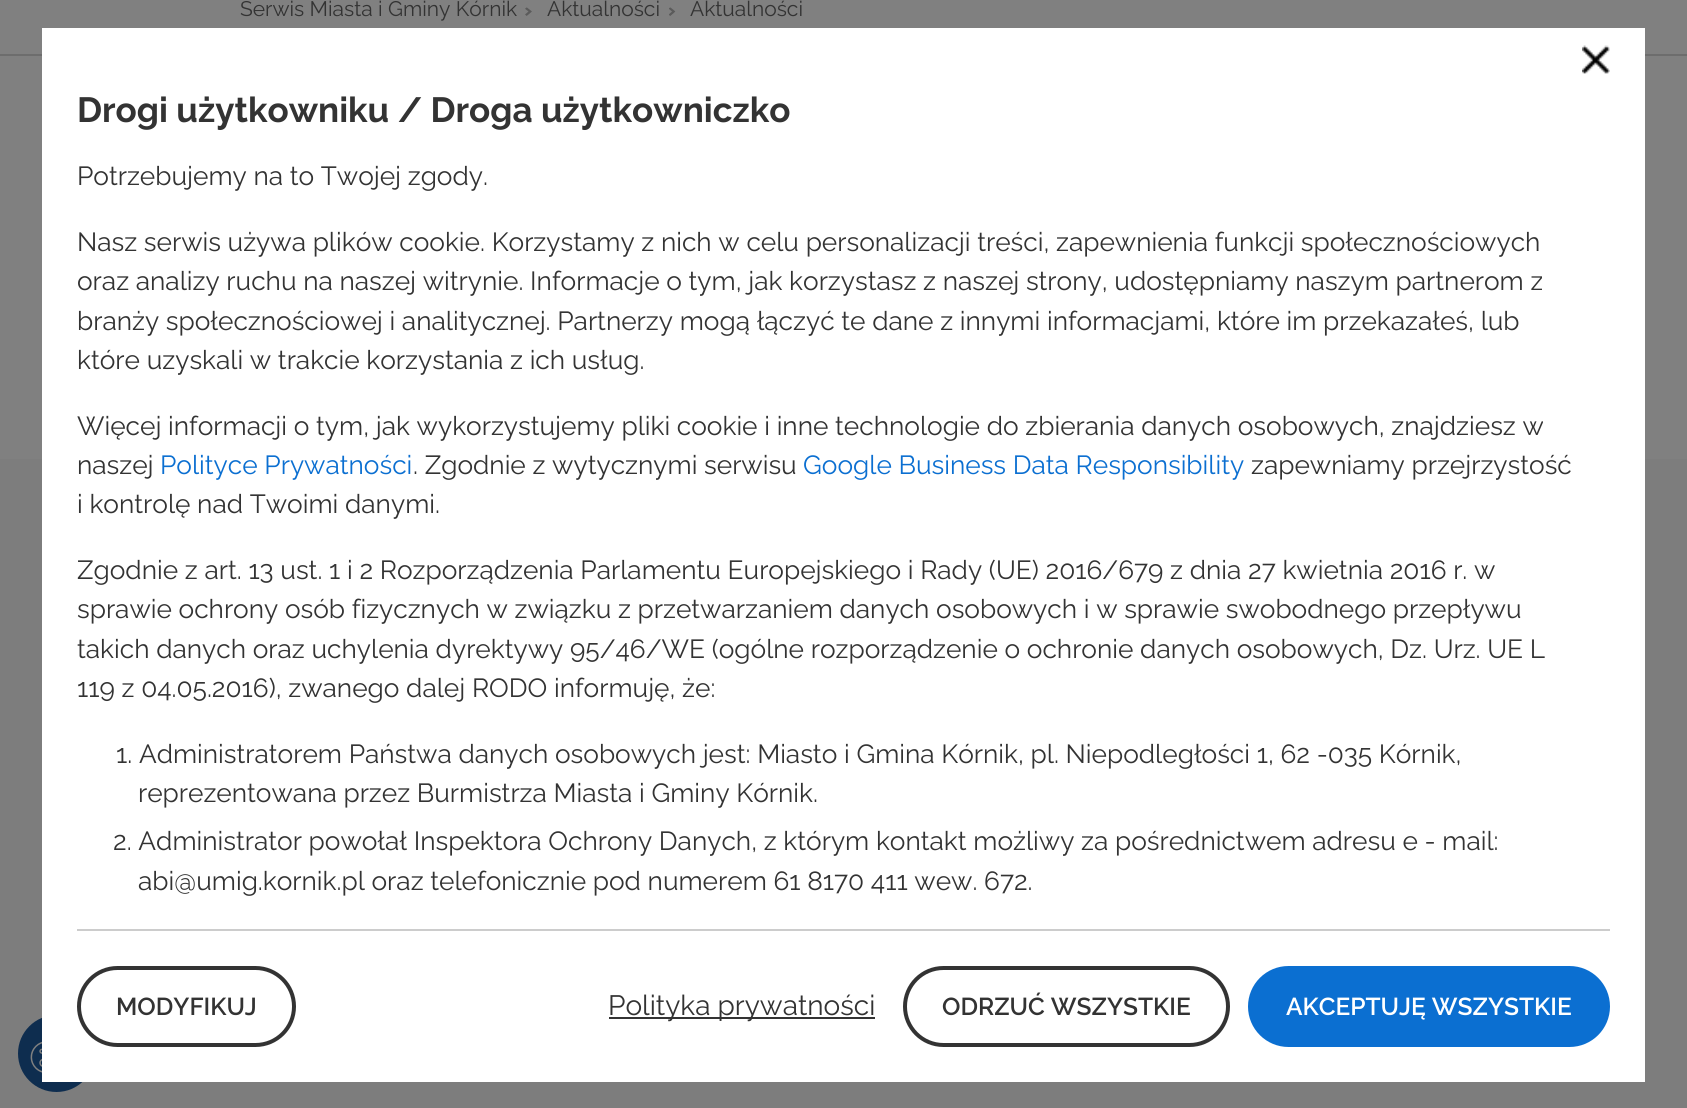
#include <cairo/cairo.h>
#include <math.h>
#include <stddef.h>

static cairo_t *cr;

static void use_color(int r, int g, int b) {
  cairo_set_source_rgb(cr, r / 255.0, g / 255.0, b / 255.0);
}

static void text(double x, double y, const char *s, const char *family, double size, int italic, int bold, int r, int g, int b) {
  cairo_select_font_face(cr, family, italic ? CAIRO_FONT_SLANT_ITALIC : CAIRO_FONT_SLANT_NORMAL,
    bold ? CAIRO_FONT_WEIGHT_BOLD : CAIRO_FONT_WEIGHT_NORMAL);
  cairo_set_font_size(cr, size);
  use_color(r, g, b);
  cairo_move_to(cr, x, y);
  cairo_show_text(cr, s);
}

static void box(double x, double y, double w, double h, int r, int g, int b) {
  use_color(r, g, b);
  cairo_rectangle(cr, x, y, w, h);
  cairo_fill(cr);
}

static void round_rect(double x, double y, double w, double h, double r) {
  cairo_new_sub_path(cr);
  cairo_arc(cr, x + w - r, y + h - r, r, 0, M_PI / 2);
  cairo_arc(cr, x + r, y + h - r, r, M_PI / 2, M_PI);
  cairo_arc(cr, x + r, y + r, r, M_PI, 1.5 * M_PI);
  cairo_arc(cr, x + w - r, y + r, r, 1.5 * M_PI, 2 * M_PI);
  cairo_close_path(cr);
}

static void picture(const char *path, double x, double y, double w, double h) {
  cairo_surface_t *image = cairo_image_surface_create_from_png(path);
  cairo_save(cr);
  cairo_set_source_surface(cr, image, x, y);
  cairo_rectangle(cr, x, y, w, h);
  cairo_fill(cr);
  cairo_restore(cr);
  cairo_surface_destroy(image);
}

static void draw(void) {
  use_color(128, 128, 128);
  cairo_paint(cr);
  box(0, 54, 1687, 2, 109, 109, 109);
  picture("img_01.png", 525, 7, 7, 9);
  picture("img_02.png", 669, 7, 7, 9);
  box(0, 459, 1687, 649, 125, 125, 125);
  use_color(14, 45, 79);
  cairo_arc(cr, 56.5, 1053.5, 38.5, 0, 2 * M_PI);
  cairo_fill(cr);
  box(42, 28, 1603, 1054, 255, 255, 255);
  picture("img_03.png", 1582, 45, 28, 29);
  box(77, 929, 1533, 2, 204, 204, 204);
  round_rect(79, 968, 215, 77, 38.5);
  use_color(51, 51, 51);
  cairo_set_line_width(cr, 4);
  cairo_stroke(cr);
  box(609, 1017, 266, 2, 51, 51, 51);
  round_rect(905, 968, 323, 77, 38.5);
  cairo_stroke(cr);
  use_color(11, 111, 209);
  round_rect(1248, 966, 362, 81, 40.5);
  cairo_fill(cr);
  picture("img_04.png", 30, 1041, 12, 32);
  text(240, 16, "Serwis Miasta i Gminy Kórnik", "Raleway", 21, 0, 0, 51, 51, 51);
  text(547, 16, "Aktualności", "Raleway", 21, 0, 0, 51, 51, 51);
  text(690, 16, "Aktualności", "Raleway", 21, 0, 0, 51, 51, 51);
  text(77, 122, "Drogi użytkowniku / Droga użytkowniczko", "Raleway", 35, 0, 1, 51, 51, 51);
  text(77, 185, "Potrzebujemy na to Twojej zgody.", "Raleway", 26.25, 0, 0, 51, 51, 51);
  text(77, 251, "Nasz serwis używa plików cookie. Korzystamy z nich w celu personalizacji treści, zapewnienia funkcji społecznościowych", "Raleway", 26.25, 0, 0, 51, 51, 51);
  text(77, 290, "oraz analizy ruchu na naszej witrynie. Informacje o tym, jak korzystasz z naszej strony, udostępniamy naszym partnerom z", "Raleway", 26.25, 0, 0, 51, 51, 51);
  text(77, 330, "branży społecznościowej i analitycznej. Partnerzy mogą łączyć te dane z innymi informacjami, które im przekazałeś, lub", "Raleway", 26.25, 0, 0, 51, 51, 51);
  text(77, 369, "które uzyskali w trakcie korzystania z ich usług.", "Raleway", 26.25, 0, 0, 51, 51, 51);
  text(77, 435, "Więcej informacji o tym, jak wykorzystujemy pliki cookie i inne technologie do zbierania danych osobowych, znajdziesz w", "Raleway", 26.25, 0, 0, 51, 51, 51);
  text(77, 474, "naszej", "Raleway", 26.25, 0, 0, 51, 51, 51);
  text(160, 474, "Polityce Prywatności", "Raleway", 26.25, 0, 0, 11, 111, 209);
  text(413, 474, ". Zgodnie z wytycznymi serwisu", "Raleway", 26.25, 0, 0, 51, 51, 51);
  text(803, 474, "Google Business Data Responsibility", "Raleway", 26.25, 0, 0, 11, 111, 209);
  text(1251, 474, "zapewniamy przejrzystość", "Raleway", 26.25, 0, 0, 51, 51, 51);
  text(77, 513, "i kontrolę nad Twoimi danymi.", "Raleway", 26.25, 0, 0, 51, 51, 51);
  text(77, 579, "Zgodnie z art. 13 ust. 1 i 2 Rozporządzenia Parlamentu Europejskiego i Rady (UE) 2016/679 z dnia 27 kwietnia 2016 r. w", "Raleway", 26.25, 0, 0, 51, 51, 51);
  text(77, 618, "sprawie ochrony osób fizycznych w związku z przetwarzaniem danych osobowych i w sprawie swobodnego przepływu", "Raleway", 26.25, 0, 0, 51, 51, 51);
  text(77, 658, "takich danych oraz uchylenia dyrektywy 95/46/WE (ogólne rozporządzenie o ochronie danych osobowych, Dz. Urz. UE L", "Raleway", 26.25, 0, 0, 51, 51, 51);
  text(77, 697, "119 z 04.05.2016), zwanego dalej RODO informuję, że:", "Raleway", 26.25, 0, 0, 51, 51, 51);
  text(116, 763, "1. Administratorem Państwa danych osobowych jest: Miasto i Gmina Kórnik, pl. Niepodległości 1, 62 -035 Kórnik,", "Raleway", 26.25, 0, 0, 51, 51, 51);
  text(138, 802, "reprezentowana przez Burmistrza Miasta i Gminy Kórnik.", "Raleway", 26.25, 0, 0, 51, 51, 51);
  text(113, 850, "2. Administrator powołał Inspektora Ochrony Danych, z którym kontakt możliwy za pośrednictwem adresu e - mail:", "Raleway", 26.25, 0, 0, 51, 51, 51);
  text(138, 890, "abi@umig.kornik.pl oraz telefonicznie pod numerem 61 8170 411 wew. 672.", "Raleway", 26.25, 0, 0, 51, 51, 51);
  text(116, 1015, "MODYFIKUJ", "Raleway SemiBold", 24.5, 0, 0, 51, 51, 51);
  text(608, 1015, "Polityka prywatności", "Raleway", 28, 0, 0, 51, 51, 51);
  text(942, 1015, "ODRZUĆ WSZYSTKIE", "Raleway SemiBold", 24.5, 0, 0, 51, 51, 51);
  text(1286, 1015, "AKCEPTUJĘ WSZYSTKIE", "Raleway SemiBold", 24.5, 0, 0, 255, 255, 255);
}

int main(void) {
  cairo_surface_t *surface = cairo_image_surface_create(CAIRO_FORMAT_RGB24, 1687, 1108);
  cr = cairo_create(surface);
  cairo_font_options_t *options = cairo_font_options_create();
  cairo_font_options_set_hint_metrics(options, CAIRO_HINT_METRICS_OFF);
  cairo_font_options_set_hint_style(options, CAIRO_HINT_STYLE_NONE);
  cairo_set_font_options(cr, options);
  cairo_set_miter_limit(cr, 4);
  draw();
  cairo_surface_write_to_png(surface, "out.png");
  cairo_font_options_destroy(options);
  cairo_destroy(cr);
  cairo_surface_destroy(surface);
  return 0;
}
